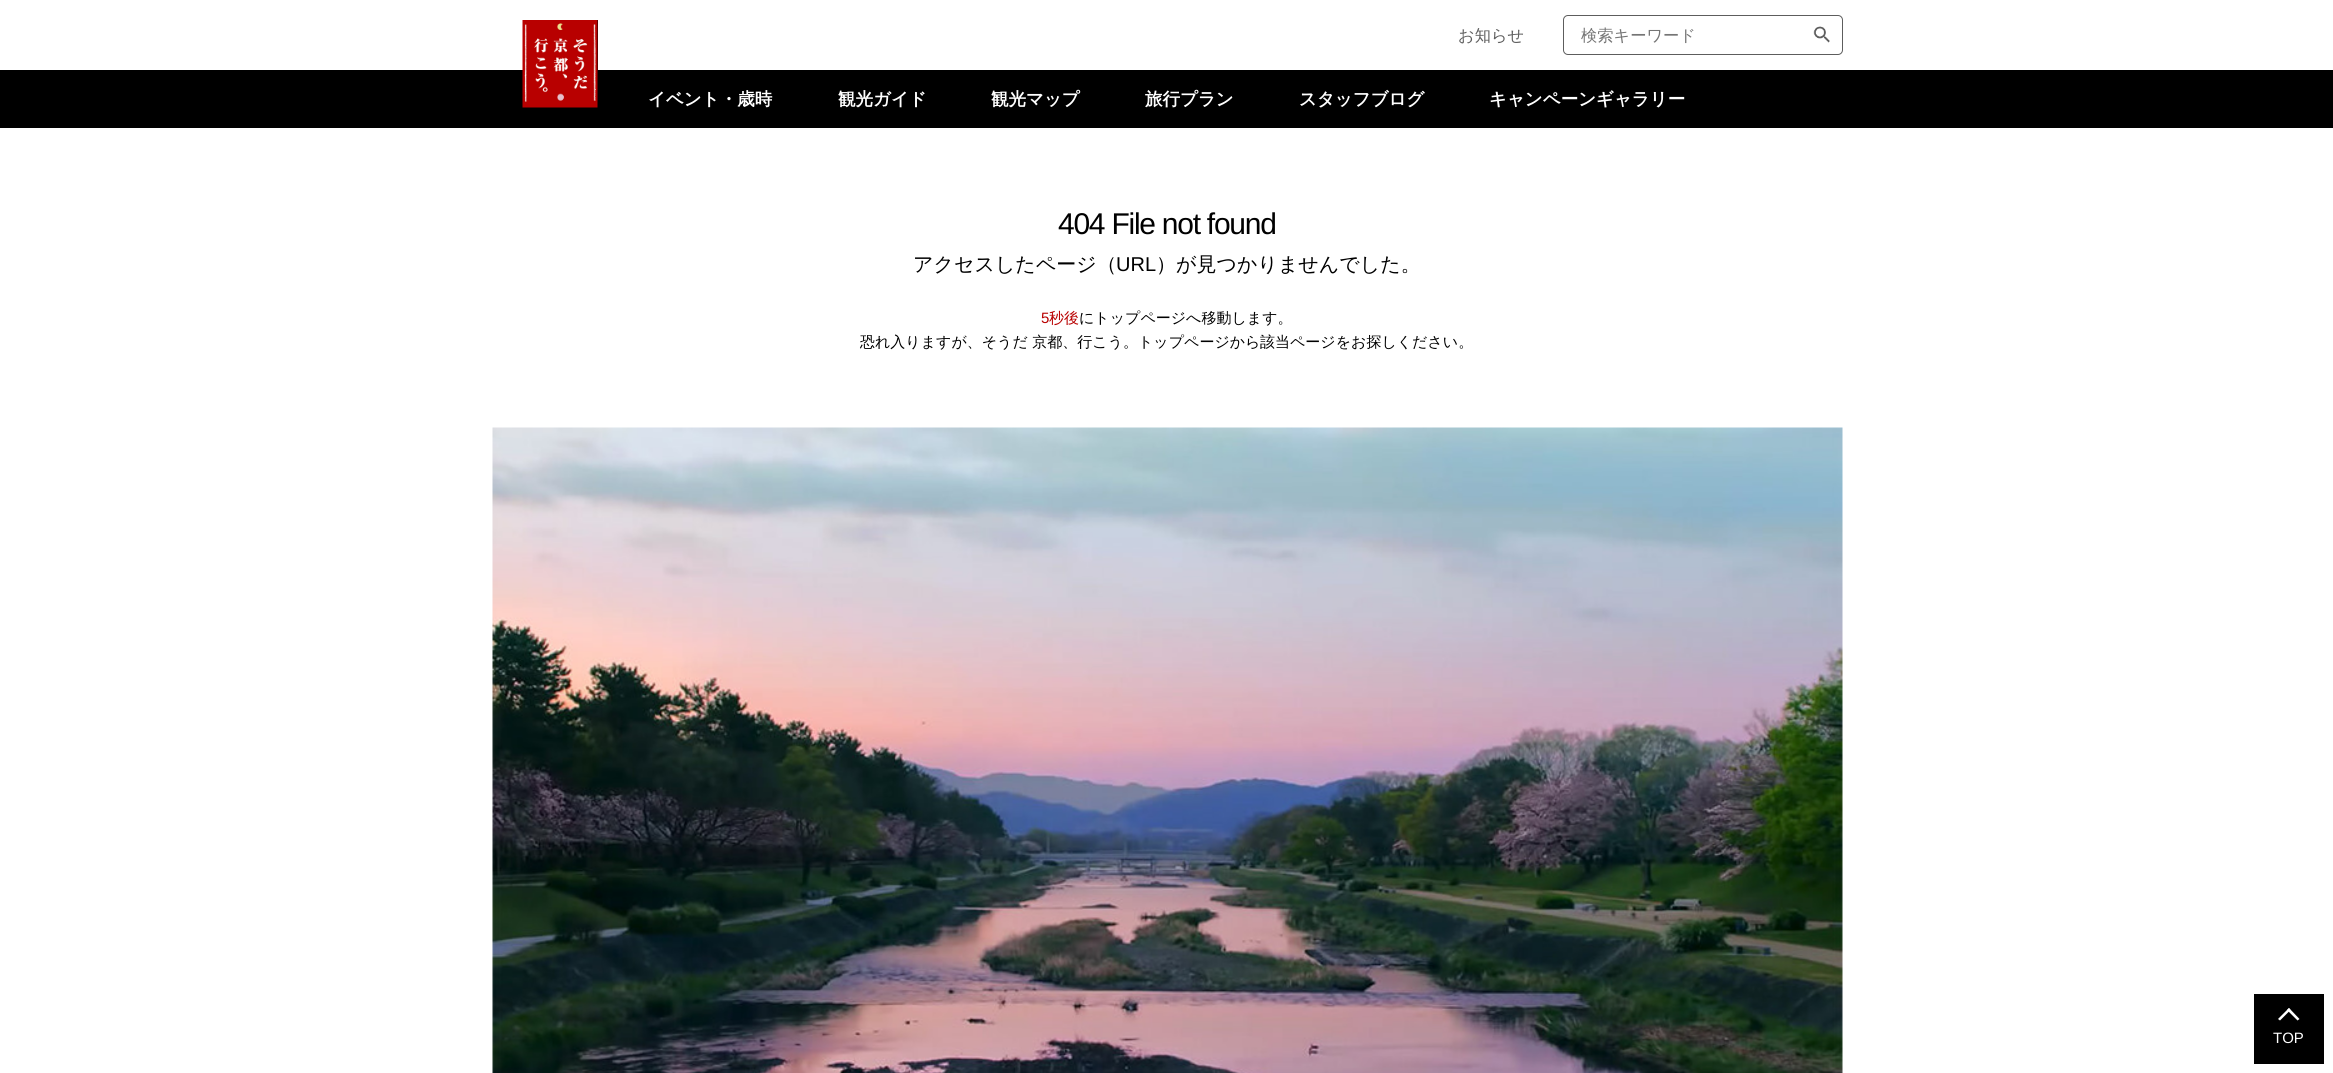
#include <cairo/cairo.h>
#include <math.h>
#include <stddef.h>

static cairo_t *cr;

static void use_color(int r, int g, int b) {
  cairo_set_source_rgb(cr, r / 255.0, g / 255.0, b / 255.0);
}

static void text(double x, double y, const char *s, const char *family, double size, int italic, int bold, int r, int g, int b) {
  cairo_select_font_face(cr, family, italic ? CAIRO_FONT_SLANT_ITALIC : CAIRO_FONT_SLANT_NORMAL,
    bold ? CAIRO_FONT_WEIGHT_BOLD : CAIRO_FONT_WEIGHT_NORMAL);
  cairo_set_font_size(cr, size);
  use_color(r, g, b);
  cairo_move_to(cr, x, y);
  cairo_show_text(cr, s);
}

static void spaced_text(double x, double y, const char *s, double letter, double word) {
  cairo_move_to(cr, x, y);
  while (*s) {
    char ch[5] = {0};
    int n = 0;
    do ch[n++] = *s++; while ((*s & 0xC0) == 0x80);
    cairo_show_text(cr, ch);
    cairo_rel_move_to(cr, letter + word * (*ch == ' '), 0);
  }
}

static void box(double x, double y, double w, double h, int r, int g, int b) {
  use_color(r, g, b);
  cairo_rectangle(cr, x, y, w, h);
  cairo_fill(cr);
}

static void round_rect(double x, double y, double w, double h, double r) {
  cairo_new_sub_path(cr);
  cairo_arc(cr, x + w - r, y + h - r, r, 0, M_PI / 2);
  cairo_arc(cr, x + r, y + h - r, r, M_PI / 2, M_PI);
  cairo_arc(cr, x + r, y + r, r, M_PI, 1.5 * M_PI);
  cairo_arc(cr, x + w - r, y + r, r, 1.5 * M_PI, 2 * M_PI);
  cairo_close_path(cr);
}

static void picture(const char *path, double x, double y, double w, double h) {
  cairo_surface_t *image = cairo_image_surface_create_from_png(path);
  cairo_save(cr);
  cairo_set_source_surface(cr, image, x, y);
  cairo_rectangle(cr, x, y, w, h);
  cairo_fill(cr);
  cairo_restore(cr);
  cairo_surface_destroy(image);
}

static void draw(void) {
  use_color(255, 255, 255);
  cairo_paint(cr);
  box(523, 20, 75, 50, 0, 0, 0);
  box(0, 70, 2333, 58, 0, 0, 0);
  picture("img_01.png", 522, 20, 76, 88);
  round_rect(1563.5, 15.5, 279, 39, 4.5);
  use_color(93, 93, 93);
  cairo_set_line_width(cr, 1);
  cairo_stroke(cr);
  picture("img_02.png", 1813, 26, 17, 17);
  picture("img_03.png", 492, 427, 1351, 646);
  box(2254, 994, 70, 70, 0, 0, 0);
  use_color(255, 255, 255);
  cairo_new_path(cr);
  cairo_move_to(cr, 2289, 1008);
  cairo_line_to(cr, 2299.5, 1019);
  cairo_line_to(cr, 2297.5, 1020.5);
  cairo_line_to(cr, 2287, 1010);
  cairo_close_path(cr);
  cairo_fill(cr);
  cairo_new_path(cr);
  cairo_move_to(cr, 2289, 1008);
  cairo_line_to(cr, 2290.5, 1010);
  cairo_line_to(cr, 2280, 1020.5);
  cairo_line_to(cr, 2278, 1019);
  cairo_close_path(cr);
  cairo_fill(cr);
  text(1458, 41, "お知らせ", "WenQuanYi Zen Hei Medium", 16.25, 0, 0, 94, 94, 94);
  text(1581, 41, "検索キーワード", "WenQuanYi Zen Hei Medium", 16.25, 0, 0, 117, 117, 117);
  text(648, 105, "イベント・歳時", "WenQuanYi Zen Hei", 17.5, 0, 1, 255, 255, 255);
  text(838, 105, "観光ガイド", "WenQuanYi Zen Hei", 17.5, 0, 1, 255, 255, 255);
  text(991, 105, "観光マップ", "WenQuanYi Zen Hei", 17.5, 0, 1, 255, 255, 255);
  text(1145, 105, "旅行プラン", "WenQuanYi Zen Hei", 17.5, 0, 1, 255, 255, 255);
  text(1299, 105, "スタッフブログ", "WenQuanYi Zen Hei", 17.5, 0, 1, 255, 255, 255);
  text(1489, 105, "キャンペーンギャラリー", "WenQuanYi Zen Hei", 17.5, 0, 1, 255, 255, 255);
  cairo_select_font_face(cr, "Liberation Sans", CAIRO_FONT_SLANT_NORMAL, CAIRO_FONT_WEIGHT_NORMAL);
  cairo_set_font_size(cr, 30);
  use_color(0, 0, 0);
  spaced_text(1058, 234, "404 File not found", -1.25, 0);
  text(913, 271, "アクセスしたページ（", "WenQuanYi Zen Hei Medium", 20, 0, 0, 0, 0, 0);
  text(1116, 271, "URL", "Liberation Sans", 20, 0, 0, 0, 0, 0);
  text(1156, 271, "）が見つかりませんでした。", "WenQuanYi Zen Hei Medium", 20, 0, 0, 0, 0, 0);
  text(1041, 323, "5", "Liberation Sans", 15, 0, 0, 184, 0, 0);
  text(1049, 323, "秒後", "WenQuanYi Zen Hei Medium", 15, 0, 0, 184, 0, 0);
  text(1079, 323, "にトップページへ移動します。", "WenQuanYi Zen Hei Medium", 15, 0, 0, 0, 0, 0);
  text(860, 347, "恐れ入りますが、そうだ 京都、行こう。トップページから", "WenQuanYi Zen Hei Medium", 15, 0, 0, 0, 0, 0);
  text(1260, 347, "該当ページをお探しください。", "WenQuanYi Zen Hei Medium", 15, 0, 0, 0, 0, 0);
  text(2273, 1043, "TOP", "Liberation Sans", 15, 0, 0, 255, 255, 255);
}

int main(void) {
  cairo_surface_t *surface = cairo_image_surface_create(CAIRO_FORMAT_RGB24, 2333, 1073);
  cr = cairo_create(surface);
  cairo_font_options_t *options = cairo_font_options_create();
  cairo_font_options_set_hint_metrics(options, CAIRO_HINT_METRICS_OFF);
  cairo_font_options_set_hint_style(options, CAIRO_HINT_STYLE_NONE);
  cairo_set_font_options(cr, options);
  cairo_set_miter_limit(cr, 4);
  draw();
  cairo_surface_write_to_png(surface, "out.png");
  cairo_font_options_destroy(options);
  cairo_destroy(cr);
  cairo_surface_destroy(surface);
  return 0;
}
